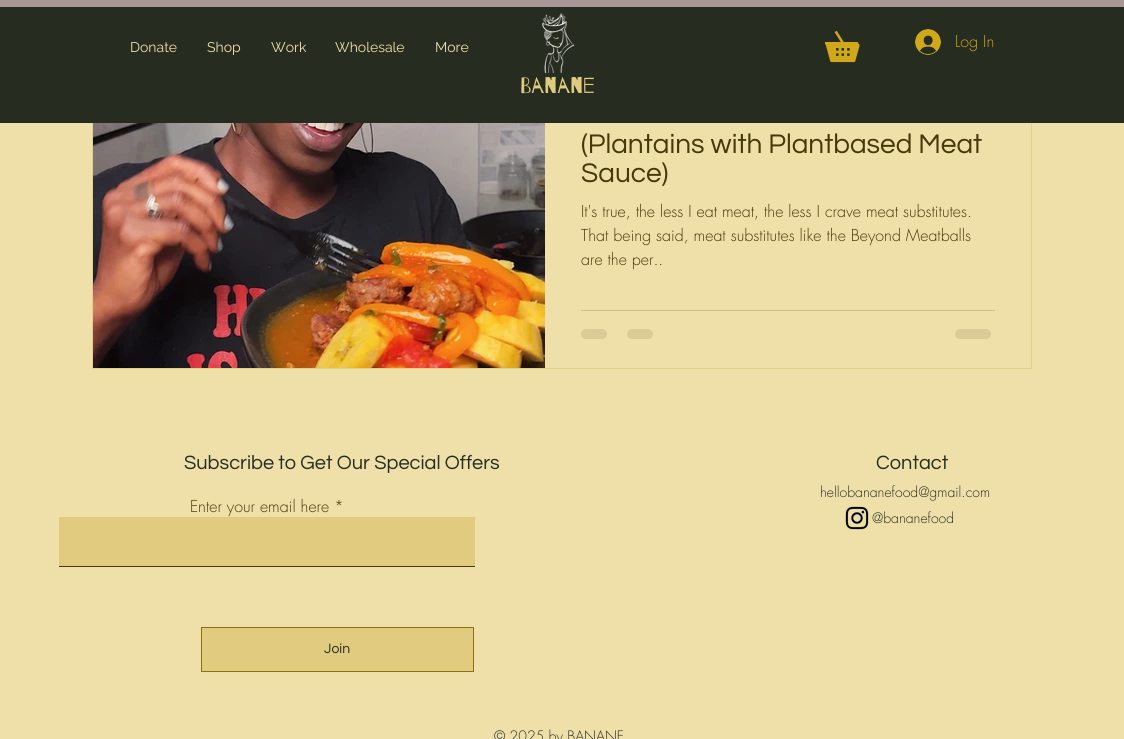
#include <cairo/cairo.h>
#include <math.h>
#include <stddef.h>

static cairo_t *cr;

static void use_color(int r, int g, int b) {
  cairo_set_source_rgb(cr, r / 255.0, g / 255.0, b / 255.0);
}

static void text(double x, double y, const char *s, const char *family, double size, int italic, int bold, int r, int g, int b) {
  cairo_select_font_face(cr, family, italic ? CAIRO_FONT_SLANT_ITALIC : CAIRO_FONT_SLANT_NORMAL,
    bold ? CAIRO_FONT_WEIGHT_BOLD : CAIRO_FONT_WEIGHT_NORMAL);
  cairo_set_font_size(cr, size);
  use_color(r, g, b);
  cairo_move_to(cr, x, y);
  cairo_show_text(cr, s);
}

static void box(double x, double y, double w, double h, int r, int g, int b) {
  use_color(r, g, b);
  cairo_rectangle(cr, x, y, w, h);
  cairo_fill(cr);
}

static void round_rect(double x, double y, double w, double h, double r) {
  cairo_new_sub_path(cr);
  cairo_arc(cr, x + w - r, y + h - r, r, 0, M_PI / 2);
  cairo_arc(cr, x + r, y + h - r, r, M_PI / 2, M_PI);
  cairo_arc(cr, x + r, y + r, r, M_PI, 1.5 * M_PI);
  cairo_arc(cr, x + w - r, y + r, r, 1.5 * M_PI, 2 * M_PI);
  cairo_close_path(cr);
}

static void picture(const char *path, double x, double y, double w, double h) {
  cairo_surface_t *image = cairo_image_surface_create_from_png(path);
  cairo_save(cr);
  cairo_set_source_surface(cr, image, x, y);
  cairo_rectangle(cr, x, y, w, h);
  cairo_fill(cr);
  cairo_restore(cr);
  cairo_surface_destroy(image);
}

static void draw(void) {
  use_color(239, 224, 170);
  cairo_paint(cr);
  cairo_rectangle(cr, 92.5, 28.5, 939, 340);
  use_color(228, 208, 137);
  cairo_set_line_width(cr, 1);
  cairo_stroke(cr);
  box(0, 7, 1124, 116, 38, 44, 32);
  box(0, 0, 1124, 7, 168, 151, 151);
  picture("img_01.png", 825, 30, 35, 33);
  picture("img_02.png", 915, 29, 26, 26);
  picture("img_03.png", 542, 13, 33, 60);
  picture("img_04.png", 93, 123, 452, 245);
  box(581, 310, 414, 1, 205, 190, 138);
  use_color(219, 204, 151);
  round_rect(581, 329, 26, 10, 5);
  cairo_fill(cr);
  round_rect(627, 329, 26, 10, 5);
  cairo_fill(cr);
  round_rect(955, 329, 36, 10, 5);
  cairo_fill(cr);
  box(59, 517, 416, 49, 224, 203, 126);
  box(59, 566, 416, 1, 69, 56, 9);
  use_color(224, 203, 126);
  cairo_rectangle(cr, 201.5, 627.5, 272, 44);
  cairo_fill_preserve(cr);
  use_color(139, 113, 18);
  cairo_stroke(cr);
  picture("img_05.png", 845, 506, 24, 24);
  text(130, 52, "Donate", "Raleway", 14, 0, 0, 239, 224, 170);
  text(207, 52, "Shop", "Raleway", 14, 0, 0, 239, 224, 170);
  text(271, 52, "Work", "Raleway", 14, 0, 0, 239, 224, 170);
  text(335, 52, "Wholesale", "Raleway", 14, 0, 0, 239, 224, 170);
  text(435, 52, "More", "Raleway", 14, 0, 0, 239, 224, 170);
  text(955, 47, "Log In", "futura Light", 16, 0, 0, 208, 169, 27);
  text(520, 93, "Banane", "Barrio", 22, 0, 0, 224, 203, 126);
  text(581, 153, "(Plantains with Plantbased Meat", "Questrial", 28, 0, 0, 69, 56, 9);
  text(581, 182, "Sauce)", "Questrial", 28, 0, 0, 69, 56, 9);
  text(581, 217, "It's true, the less I eat meat, the less I crave meat substitutes.", "futura Light", 16, 0, 0, 69, 56, 9);
  text(581, 241, "That being said, meat substitutes like the Beyond Meatballs", "futura Light", 16, 0, 0, 69, 56, 9);
  text(581, 265, "are the per..", "futura Light", 16, 0, 0, 69, 56, 9);
  text(184, 469, "Subscribe to Get Our Special Offers", "Questrial", 20, 0, 0, 38, 44, 32);
  text(190, 512, "Enter your email here *", "futura Light", 16, 0, 0, 69, 56, 9);
  text(324, 653, "Join", "Questrial", 14, 0, 0, 38, 44, 32);
  text(876, 469, "Contact", "Questrial", 20, 0, 0, 38, 44, 32);
  text(820, 497, "hellobananefood@gmail.com", "futura Light", 14, 0, 0, 38, 44, 32);
  text(872, 523, "@bananefood", "futura Light", 14, 0, 0, 38, 44, 32);
  text(494, 741, "© 2025 by BANANE", "futura Light", 14, 0, 0, 38, 44, 32);
}

int main(void) {
  cairo_surface_t *surface = cairo_image_surface_create(CAIRO_FORMAT_RGB24, 1124, 739);
  cr = cairo_create(surface);
  cairo_font_options_t *options = cairo_font_options_create();
  cairo_font_options_set_hint_metrics(options, CAIRO_HINT_METRICS_OFF);
  cairo_font_options_set_hint_style(options, CAIRO_HINT_STYLE_NONE);
  cairo_set_font_options(cr, options);
  cairo_set_miter_limit(cr, 4);
  draw();
  cairo_surface_write_to_png(surface, "out.png");
  cairo_font_options_destroy(options);
  cairo_destroy(cr);
  cairo_surface_destroy(surface);
  return 0;
}
